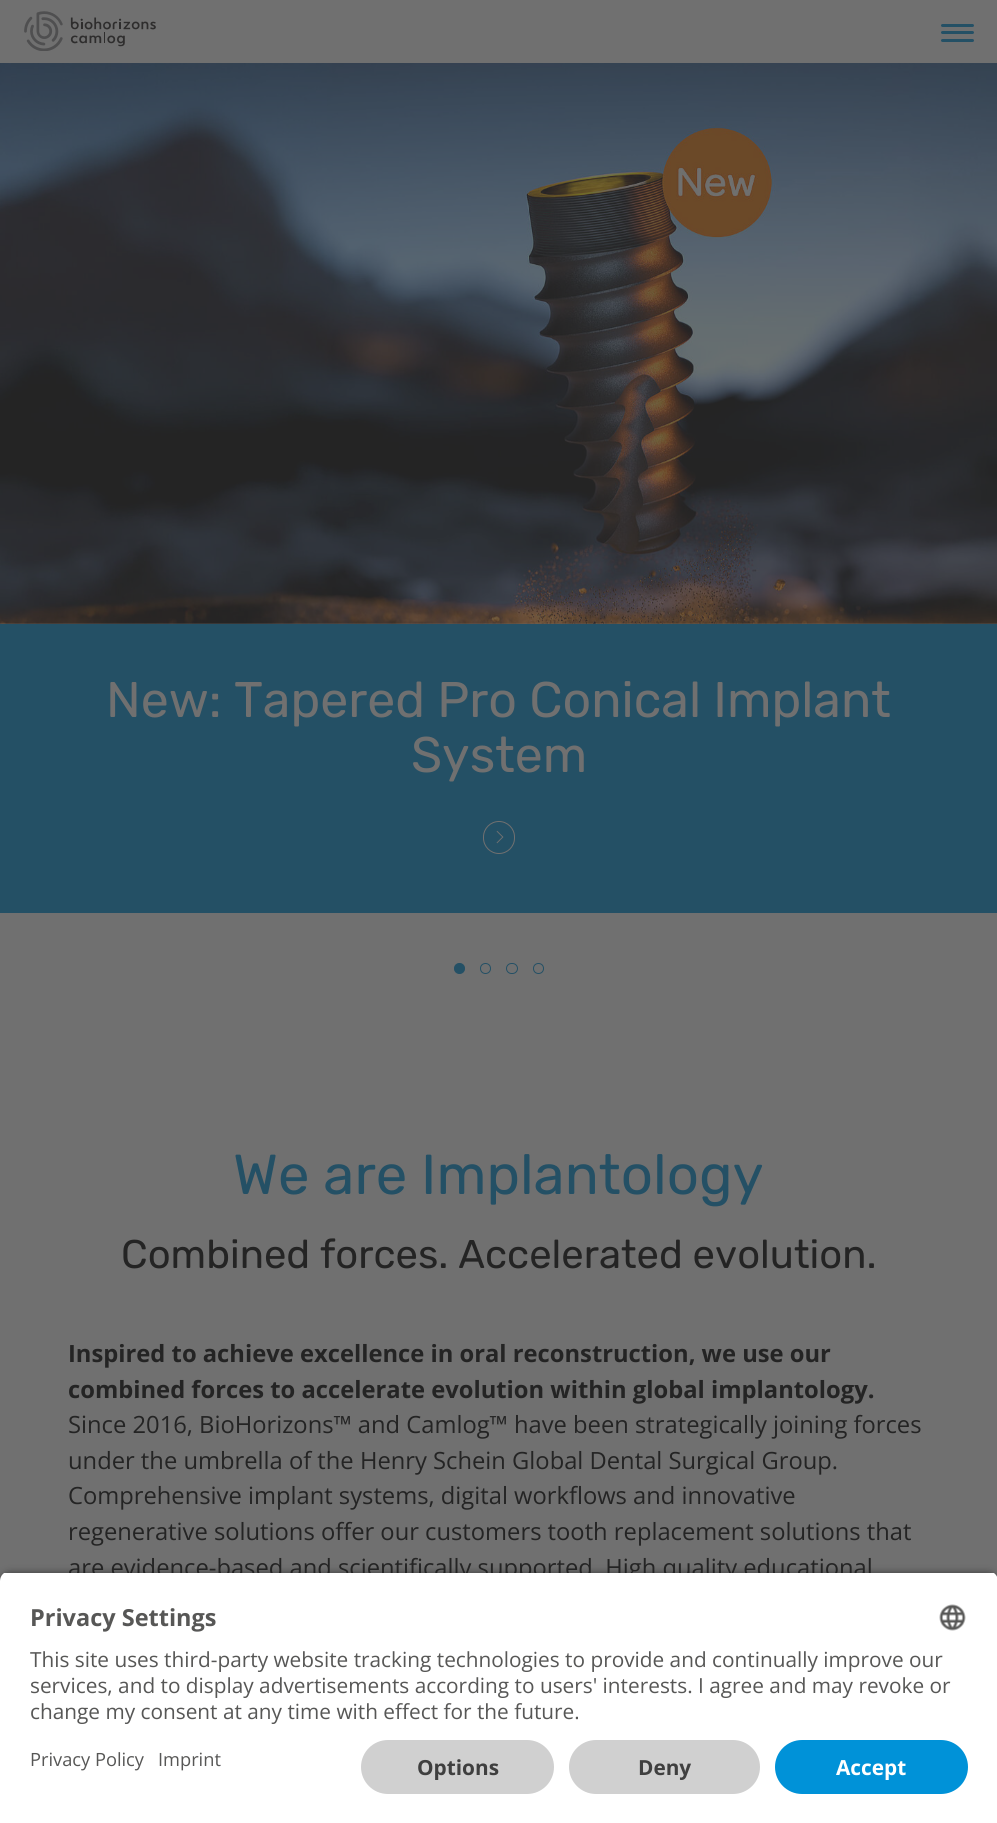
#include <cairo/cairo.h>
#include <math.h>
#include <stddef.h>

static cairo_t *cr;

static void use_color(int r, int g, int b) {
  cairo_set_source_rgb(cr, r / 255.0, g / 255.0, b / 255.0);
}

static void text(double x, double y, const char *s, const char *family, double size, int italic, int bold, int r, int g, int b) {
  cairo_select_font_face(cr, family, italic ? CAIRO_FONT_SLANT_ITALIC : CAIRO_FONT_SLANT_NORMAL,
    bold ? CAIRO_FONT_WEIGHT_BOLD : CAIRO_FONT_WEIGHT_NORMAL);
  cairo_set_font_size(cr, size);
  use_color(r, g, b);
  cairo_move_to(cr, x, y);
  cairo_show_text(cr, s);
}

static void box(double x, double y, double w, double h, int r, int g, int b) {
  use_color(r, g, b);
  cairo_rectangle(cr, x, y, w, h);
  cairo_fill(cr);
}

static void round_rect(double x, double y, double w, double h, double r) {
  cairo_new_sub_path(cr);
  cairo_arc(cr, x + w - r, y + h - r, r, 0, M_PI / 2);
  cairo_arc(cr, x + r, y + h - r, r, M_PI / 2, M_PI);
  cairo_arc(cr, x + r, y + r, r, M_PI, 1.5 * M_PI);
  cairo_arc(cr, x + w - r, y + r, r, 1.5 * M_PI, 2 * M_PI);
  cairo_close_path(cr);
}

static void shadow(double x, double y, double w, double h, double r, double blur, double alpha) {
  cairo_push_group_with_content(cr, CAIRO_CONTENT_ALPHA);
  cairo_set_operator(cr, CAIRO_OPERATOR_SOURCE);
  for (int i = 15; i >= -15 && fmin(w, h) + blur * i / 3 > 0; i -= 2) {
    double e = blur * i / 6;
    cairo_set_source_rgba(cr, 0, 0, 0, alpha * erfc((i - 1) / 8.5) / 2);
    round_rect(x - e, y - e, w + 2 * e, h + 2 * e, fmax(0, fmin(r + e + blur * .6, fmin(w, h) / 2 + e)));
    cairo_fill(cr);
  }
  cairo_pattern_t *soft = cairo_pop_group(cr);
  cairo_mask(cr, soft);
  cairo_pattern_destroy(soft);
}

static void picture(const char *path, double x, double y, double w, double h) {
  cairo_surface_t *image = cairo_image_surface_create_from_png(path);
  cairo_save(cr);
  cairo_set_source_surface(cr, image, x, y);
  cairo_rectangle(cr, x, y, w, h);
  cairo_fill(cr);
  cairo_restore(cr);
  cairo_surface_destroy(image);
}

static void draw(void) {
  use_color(112, 112, 112);
  cairo_paint(cr);
  picture("img_01.png", 24, 11, 132, 40);
  use_color(36, 80, 101);
  round_rect(941, 31, 33, 3, 1.5);
  cairo_fill(cr);
  round_rect(941, 24, 33, 3, 1.5);
  cairo_fill(cr);
  round_rect(941, 39, 33, 3, 1.5);
  cairo_fill(cr);
  picture("img_02.png", 0, 63, 997, 561);
  box(0, 624, 997, 289, 36, 80, 101);
  round_rect(483.5, 821.5, 31, 32, 15.5);
  use_color(112, 112, 112);
  cairo_set_line_width(cr, 1);
  cairo_stroke(cr);
  picture("img_03.png", 496, 830, 8, 14);
  use_color(36, 80, 101);
  cairo_arc(cr, 459.5, 968.5, 5, 0, 2 * M_PI);
  cairo_fill_preserve(cr);
  cairo_stroke(cr);
  cairo_arc(cr, 485.5, 968.5, 5, 0, 2 * M_PI);
  cairo_stroke(cr);
  round_rect(506.5, 963.5, 11, 10, 5);
  cairo_stroke(cr);
  cairo_arc(cr, 538.5, 968.5, 5, 0, 2 * M_PI);
  cairo_stroke(cr);
  use_color(0, 0, 0);
  shadow(0, 1575, 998, 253, 10, 4.5, 0.8);
  box(0, 1730, 997, 93, 255, 255, 255);
  use_color(208, 208, 208);
  round_rect(361, 1740, 193, 54, 27);
  cairo_fill(cr);
  round_rect(569, 1740, 191, 54, 27);
  cairo_fill(cr);
  use_color(0, 146, 216);
  round_rect(775, 1740, 193, 54, 27);
  cairo_fill(cr);
  text(106, 717, "New: Tapered Pro Conical Implant", "Rubik Light", 50, 0, 0, 112, 112, 112);
  text(411, 772, "System", "Rubik Light", 50, 0, 0, 112, 112, 112);
  text(233, 1194, "We are Implantology", "Rubik Light", 56.25, 0, 0, 36, 80, 101);
  text(121, 1268, "Combined forces. Accelerated evolution.", "Rubik Light", 40, 0, 0, 36, 36, 36);
  text(68, 1362, "Inspired to achieve excellence in oral reconstruction, we use our", "Open Sans", 23.75, 0, 1, 36, 36, 36);
  text(68, 1398, "combined forces to accelerate evolution within global implantology.", "Open Sans", 23.75, 0, 1, 36, 36, 36);
  text(68, 1433, "Since 2016, BioHorizons™ and Camlog™ have been strategically joining forces", "Open Sans", 23.75, 0, 0, 36, 36, 36);
  text(68, 1469, "under the umbrella of the Henry Schein Global Dental Surgical Group.", "Open Sans", 23.75, 0, 0, 36, 36, 36);
  text(68, 1504, "Comprehensive implant systems, digital workflows and innovative", "Open Sans", 23.75, 0, 0, 36, 36, 36);
  text(68, 1540, "regenerative solutions offer our customers tooth replacement solutions that", "Open Sans", 23.75, 0, 0, 36, 36, 36);
  text(68, 1576, "are evidence-based and scientifically supported. High quality educational", "Open Sans", 23.75, 0, 0, 36, 36, 36);
  cairo_save(cr);
  cairo_new_path(cr);
  cairo_move_to(cr, 10, 1571);
  cairo_line_to(cr, 988, 1571);
  cairo_curve_to(cr, 993.5, 1571, 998, 1575.5, 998, 1581);
  cairo_line_to(cr, 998, 1730);
  cairo_line_to(cr, 0, 1730);
  cairo_line_to(cr, 0, 1581);
  cairo_curve_to(cr, 0, 1575.5, 4.5, 1571, 10, 1571);
  cairo_close_path(cr);
  cairo_clip(cr);
  box(0, 1573, 997, 157, 255, 255, 255);
  cairo_restore(cr);
  text(30, 1626, "Privacy Settings", "Open Sans", 23.5, 0, 1, 87, 87, 86);
  picture("img_04.png", 939, 1604, 27, 27);
  text(30, 1667, "This site uses third-party website tracking technologies to provide and continually improve our", "Open Sans", 20.8, 0, 0, 87, 87, 86);
  text(30, 1693, "services, and to display advertisements according to users' interests. I agree and may revoke or", "Open Sans", 20.8, 0, 0, 87, 87, 86);
  text(30, 1719, "change my consent at any time with effect for the future.", "Open Sans", 20.8, 0, 0, 87, 87, 86);
  text(30, 1766, "Privacy Policy", "Open Sans", 18.25, 0, 0, 87, 87, 86);
  text(158, 1766, "Imprint", "Open Sans", 18.25, 0, 0, 87, 87, 86);
  text(417, 1775, "Options", "Open Sans", 20.8, 0, 1, 63, 63, 63);
  text(638, 1775, "Deny", "Open Sans", 20.8, 0, 1, 63, 63, 63);
  text(836, 1775, "Accept", "Open Sans", 20.8, 0, 1, 255, 255, 255);
}

int main(void) {
  cairo_surface_t *surface = cairo_image_surface_create(CAIRO_FORMAT_RGB24, 997, 1823);
  cr = cairo_create(surface);
  cairo_font_options_t *options = cairo_font_options_create();
  cairo_font_options_set_hint_metrics(options, CAIRO_HINT_METRICS_OFF);
  cairo_font_options_set_hint_style(options, CAIRO_HINT_STYLE_NONE);
  cairo_set_font_options(cr, options);
  cairo_set_miter_limit(cr, 4);
  draw();
  cairo_surface_write_to_png(surface, "out.png");
  cairo_font_options_destroy(options);
  cairo_destroy(cr);
  cairo_surface_destroy(surface);
  return 0;
}
